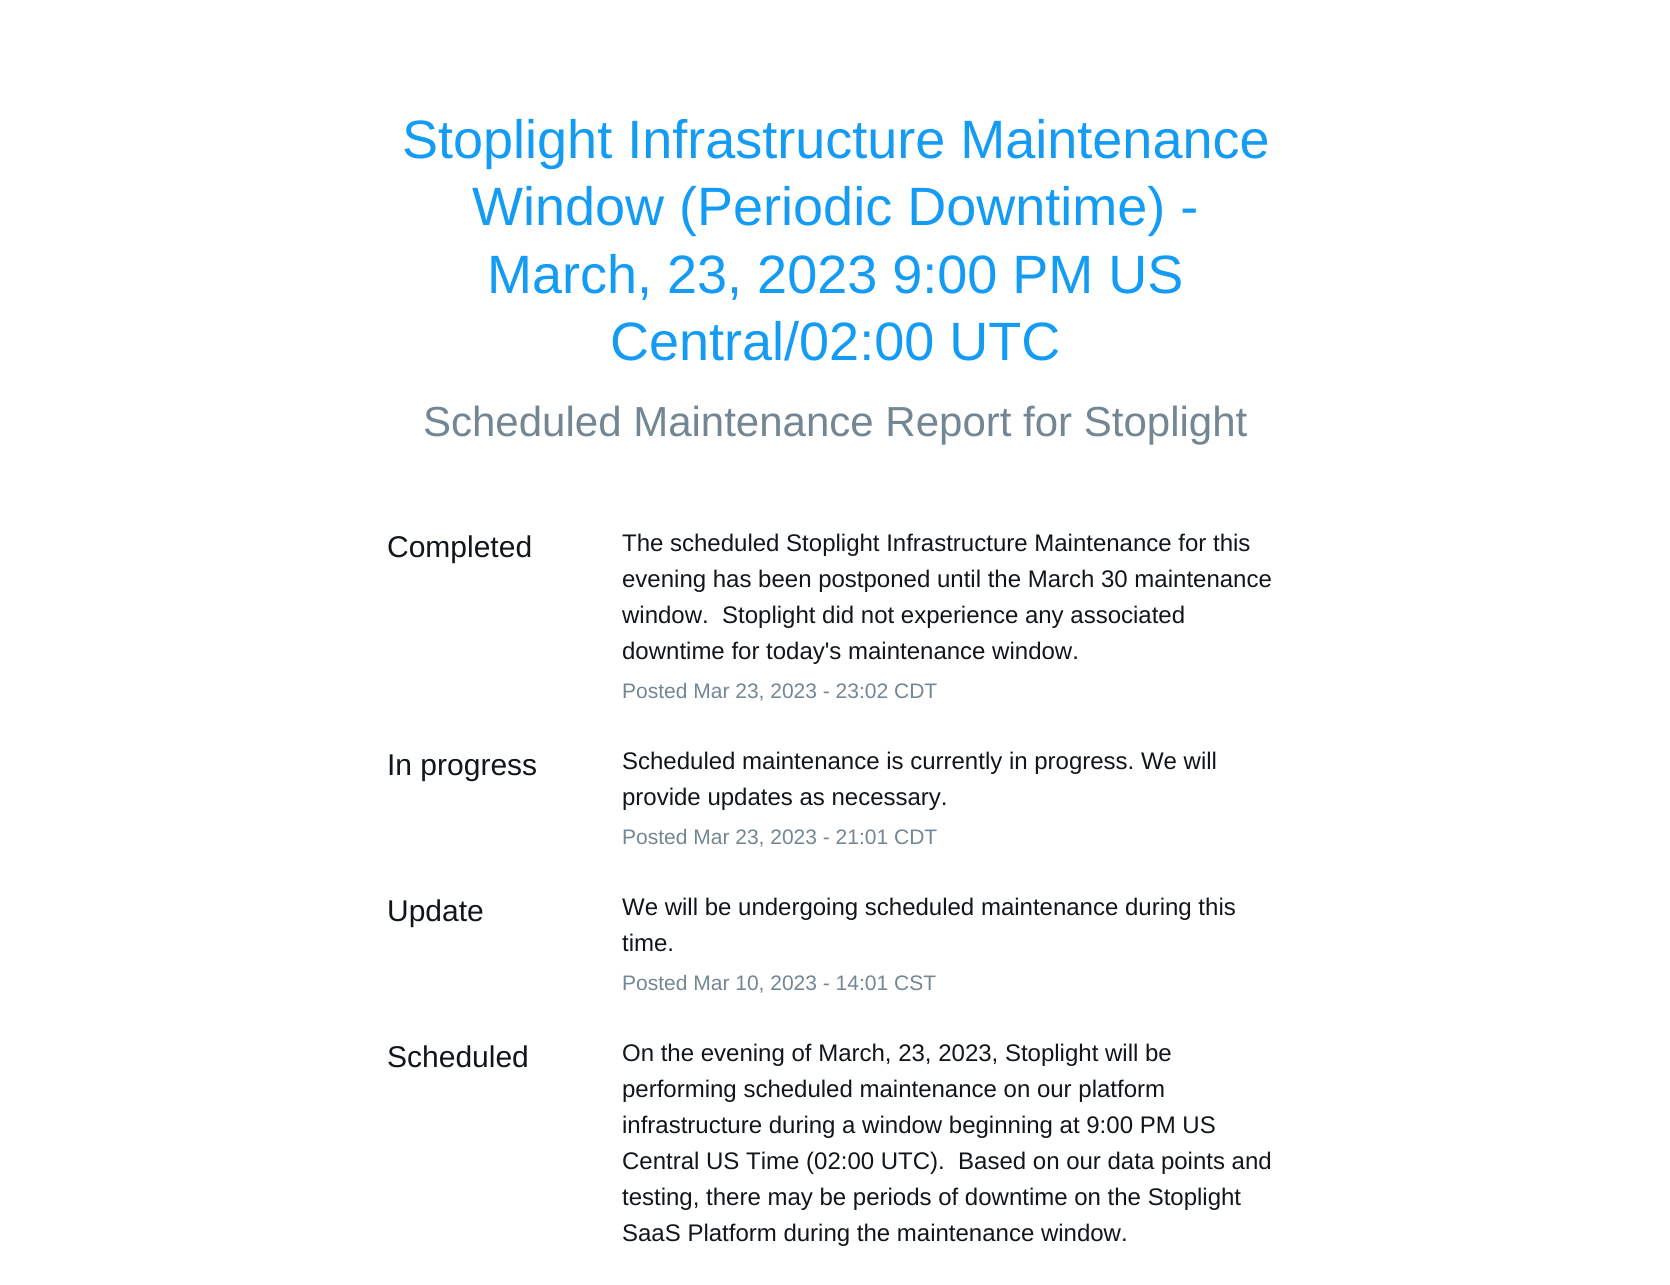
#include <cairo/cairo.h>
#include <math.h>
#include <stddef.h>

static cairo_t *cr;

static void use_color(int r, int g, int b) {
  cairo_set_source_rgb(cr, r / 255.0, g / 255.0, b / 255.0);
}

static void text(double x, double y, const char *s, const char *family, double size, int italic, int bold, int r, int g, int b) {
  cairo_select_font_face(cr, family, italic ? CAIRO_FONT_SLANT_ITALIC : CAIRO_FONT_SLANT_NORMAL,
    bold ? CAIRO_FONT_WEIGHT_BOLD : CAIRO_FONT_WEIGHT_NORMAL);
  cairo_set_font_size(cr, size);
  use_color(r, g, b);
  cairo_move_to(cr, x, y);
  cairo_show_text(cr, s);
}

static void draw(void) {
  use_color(255, 255, 255);
  cairo_paint(cr);
  text(402, 158, "Stoplight Infrastructure Maintenance", "Liberation Sans", 54, 0, 0, 20, 156, 244);
  text(472, 225, "Window (Periodic Downtime) -", "Liberation Sans", 54, 0, 0, 20, 156, 244);
  text(487, 293, "March, 23, 2023 9:00 PM US", "Liberation Sans", 54, 0, 0, 20, 156, 244);
  text(610, 360, "Central/02:00 UTC", "Liberation Sans", 54, 0, 0, 20, 156, 244);
  text(423, 436, "Scheduled Maintenance Report for Stoplight", "Liberation Sans", 42, 0, 0, 115, 134, 148);
  text(387, 557, "Completed", "Liberation Sans", 30, 0, 0, 16, 22, 26);
  text(622, 551, "The scheduled Stoplight Infrastructure Maintenance for this", "Liberation Sans", 24, 0, 0, 16, 22, 26);
  text(622, 587, "evening has been postponed until the March 30 maintenance", "Liberation Sans", 24, 0, 0, 16, 22, 26);
  text(622, 623, "window.  Stoplight did not experience any associated", "Liberation Sans", 24, 0, 0, 16, 22, 26);
  text(622, 659, "downtime for today's maintenance window.", "Liberation Sans", 24, 0, 0, 16, 22, 26);
  text(622, 698, "Posted Mar 23, 2023 - 23:02 CDT", "Liberation Sans", 21, 0, 0, 115, 134, 148);
  text(387, 775, "In progress", "Liberation Sans", 30, 0, 0, 16, 22, 26);
  text(622, 769, "Scheduled maintenance is currently in progress. We will", "Liberation Sans", 24, 0, 0, 16, 22, 26);
  text(622, 805, "provide updates as necessary.", "Liberation Sans", 24, 0, 0, 16, 22, 26);
  text(622, 844, "Posted Mar 23, 2023 - 21:01 CDT", "Liberation Sans", 21, 0, 0, 115, 134, 148);
  text(387, 921, "Update", "Liberation Sans", 30, 0, 0, 16, 22, 26);
  text(622, 915, "We will be undergoing scheduled maintenance during this", "Liberation Sans", 24, 0, 0, 16, 22, 26);
  text(622, 951, "time.", "Liberation Sans", 24, 0, 0, 16, 22, 26);
  text(622, 990, "Posted Mar 10, 2023 - 14:01 CST", "Liberation Sans", 21, 0, 0, 115, 134, 148);
  text(387, 1067, "Scheduled", "Liberation Sans", 30, 0, 0, 16, 22, 26);
  text(622, 1061, "On the evening of March, 23, 2023, Stoplight will be", "Liberation Sans", 24, 0, 0, 16, 22, 26);
  text(622, 1097, "performing scheduled maintenance on our platform", "Liberation Sans", 24, 0, 0, 16, 22, 26);
  text(622, 1133, "infrastructure during a window beginning at 9:00 PM US", "Liberation Sans", 24, 0, 0, 16, 22, 26);
  text(622, 1169, "Central US Time (02:00 UTC).  Based on our data points and", "Liberation Sans", 24, 0, 0, 16, 22, 26);
  text(622, 1205, "testing, there may be periods of downtime on the Stoplight", "Liberation Sans", 24, 0, 0, 16, 22, 26);
  text(622, 1241, "SaaS Platform during the maintenance window.", "Liberation Sans", 24, 0, 0, 16, 22, 26);
}

int main(void) {
  cairo_surface_t *surface = cairo_image_surface_create(CAIRO_FORMAT_RGB24, 1670, 1285);
  cr = cairo_create(surface);
  cairo_font_options_t *options = cairo_font_options_create();
  cairo_font_options_set_hint_metrics(options, CAIRO_HINT_METRICS_OFF);
  cairo_font_options_set_hint_style(options, CAIRO_HINT_STYLE_NONE);
  cairo_set_font_options(cr, options);
  cairo_set_miter_limit(cr, 4);
  draw();
  cairo_surface_write_to_png(surface, "out.png");
  cairo_font_options_destroy(options);
  cairo_destroy(cr);
  cairo_surface_destroy(surface);
  return 0;
}
